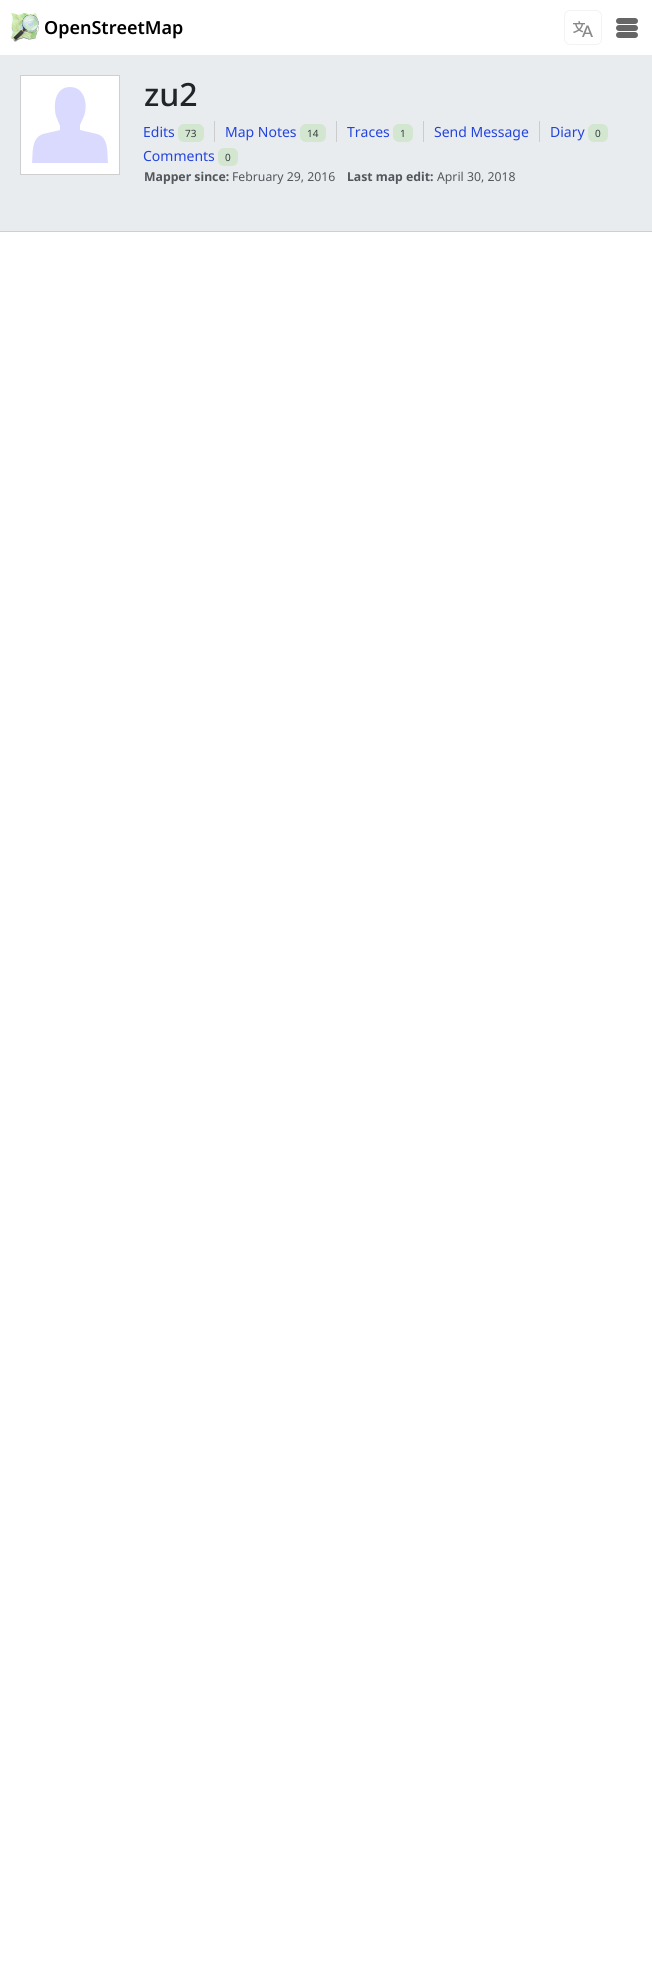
#include <cairo/cairo.h>
#include <math.h>
#include <stddef.h>

static cairo_t *cr;

static void use_color(int r, int g, int b) {
  cairo_set_source_rgb(cr, r / 255.0, g / 255.0, b / 255.0);
}

static void text(double x, double y, const char *s, const char *family, double size, int italic, int bold, int r, int g, int b) {
  cairo_select_font_face(cr, family, italic ? CAIRO_FONT_SLANT_ITALIC : CAIRO_FONT_SLANT_NORMAL,
    bold ? CAIRO_FONT_WEIGHT_BOLD : CAIRO_FONT_WEIGHT_NORMAL);
  cairo_set_font_size(cr, size);
  use_color(r, g, b);
  cairo_move_to(cr, x, y);
  cairo_show_text(cr, s);
}

static void box(double x, double y, double w, double h, int r, int g, int b) {
  use_color(r, g, b);
  cairo_rectangle(cr, x, y, w, h);
  cairo_fill(cr);
}

static void round_rect(double x, double y, double w, double h, double r) {
  cairo_new_sub_path(cr);
  cairo_arc(cr, x + w - r, y + h - r, r, 0, M_PI / 2);
  cairo_arc(cr, x + r, y + h - r, r, M_PI / 2, M_PI);
  cairo_arc(cr, x + r, y + r, r, M_PI, 1.5 * M_PI);
  cairo_arc(cr, x + w - r, y + r, r, 1.5 * M_PI, 2 * M_PI);
  cairo_close_path(cr);
}

static void picture(const char *path, double x, double y, double w, double h) {
  cairo_surface_t *image = cairo_image_surface_create_from_png(path);
  cairo_save(cr);
  cairo_set_source_surface(cr, image, x, y);
  cairo_rectangle(cr, x, y, w, h);
  cairo_fill(cr);
  cairo_restore(cr);
  cairo_surface_destroy(image);
}

static void draw(void) {
  use_color(255, 255, 255);
  cairo_paint(cr);
  picture("img_01.png", 11, 13, 28, 29);
  round_rect(564.5, 10.5, 37, 34, 5.5);
  use_color(243, 243, 243);
  cairo_set_line_width(cr, 1);
  cairo_stroke(cr);
  picture("img_02.png", 573, 21, 20, 16);
  picture("img_03.png", 616, 18, 22, 20);
  box(0, 55, 652, 176, 233, 236, 239);
  box(0, 231, 652, 1, 207, 207, 207);
  use_color(255, 255, 255);
  cairo_rectangle(cr, 20.5, 75.5, 99, 99);
  cairo_fill_preserve(cr);
  use_color(207, 207, 207);
  cairo_stroke(cr);
  use_color(218, 218, 255);
  cairo_new_path(cr);
  cairo_move_to(cr, 70, 87);
  cairo_curve_to(cr, 55, 87, 53, 105, 56, 116);
  cairo_line_to(cr, 60, 126);
  cairo_line_to(cr, 60, 130);
  cairo_line_to(cr, 43, 134);
  cairo_curve_to(cr, 31, 138, 33, 153, 32, 163);
  cairo_line_to(cr, 108, 163);
  cairo_curve_to(cr, 107, 153, 109, 137, 97, 134);
  cairo_line_to(cr, 80, 130);
  cairo_line_to(cr, 80, 125);
  cairo_line_to(cr, 84, 116);
  cairo_curve_to(cr, 88, 105, 85, 87, 70, 87);
  cairo_close_path(cr);
  cairo_fill(cr);
  use_color(211, 230, 208);
  round_rect(178, 124, 26, 18, 6);
  cairo_fill(cr);
  box(214, 121, 1, 21, 204, 204, 204);
  use_color(211, 230, 208);
  round_rect(300, 124, 26, 18, 6);
  cairo_fill(cr);
  box(336, 121, 1, 21, 204, 204, 204);
  use_color(211, 230, 208);
  round_rect(393, 124, 20, 18, 6);
  cairo_fill(cr);
  box(423, 121, 1, 21, 204, 204, 204);
  box(539, 121, 1, 21, 204, 204, 204);
  use_color(211, 230, 208);
  round_rect(588, 124, 20, 18, 6);
  cairo_fill(cr);
  round_rect(218, 148, 20, 18, 6);
  cairo_fill(cr);
  text(44, 34, "OpenStreetMap", "Noto Sans SemiBold", 18, 0, 0, 0, 0, 0);
  text(144, 106, "zu2", "Noto Sans Medium", 32, 0, 0, 33, 37, 41);
  text(143, 137, "Edits", "Noto Sans", 14, 0, 0, 34, 68, 221);
  text(185, 137, "73", "Noto Sans", 10, 0, 0, 52, 58, 64);
  text(225, 137, "Map Notes", "Noto Sans", 14, 0, 0, 34, 68, 221);
  text(307, 137, "14", "Noto Sans", 10, 0, 0, 52, 58, 64);
  text(347, 137, "Traces", "Noto Sans", 14, 0, 0, 34, 68, 221);
  text(400, 137, "1", "Noto Sans", 10, 0, 0, 52, 58, 64);
  text(434, 137, "Send Message", "Noto Sans", 14, 0, 0, 34, 68, 221);
  text(550, 137, "Diary", "Noto Sans", 14, 0, 0, 34, 68, 221);
  text(595, 137, "0", "Noto Sans", 10, 0, 0, 52, 58, 64);
  text(143, 161, "Comments", "Noto Sans", 14, 0, 0, 34, 68, 221);
  text(225, 161, "0", "Noto Sans", 10, 0, 0, 52, 58, 64);
  text(144, 181, "Mapper since:", "Noto Sans", 12.25, 0, 1, 83, 87, 91);
  text(232, 181, "February 29, 2016", "Noto Sans", 12.25, 0, 0, 83, 87, 91);
  text(347, 181, "Last map edit:", "Noto Sans", 12.25, 0, 1, 83, 87, 91);
  text(437, 181, "April 30, 2018", "Noto Sans", 12.25, 0, 0, 83, 87, 91);
}

int main(void) {
  cairo_surface_t *surface = cairo_image_surface_create(CAIRO_FORMAT_RGB24, 652, 1972);
  cr = cairo_create(surface);
  cairo_font_options_t *options = cairo_font_options_create();
  cairo_font_options_set_hint_metrics(options, CAIRO_HINT_METRICS_OFF);
  cairo_font_options_set_hint_style(options, CAIRO_HINT_STYLE_NONE);
  cairo_set_font_options(cr, options);
  cairo_set_miter_limit(cr, 4);
  draw();
  cairo_surface_write_to_png(surface, "out.png");
  cairo_font_options_destroy(options);
  cairo_destroy(cr);
  cairo_surface_destroy(surface);
  return 0;
}
